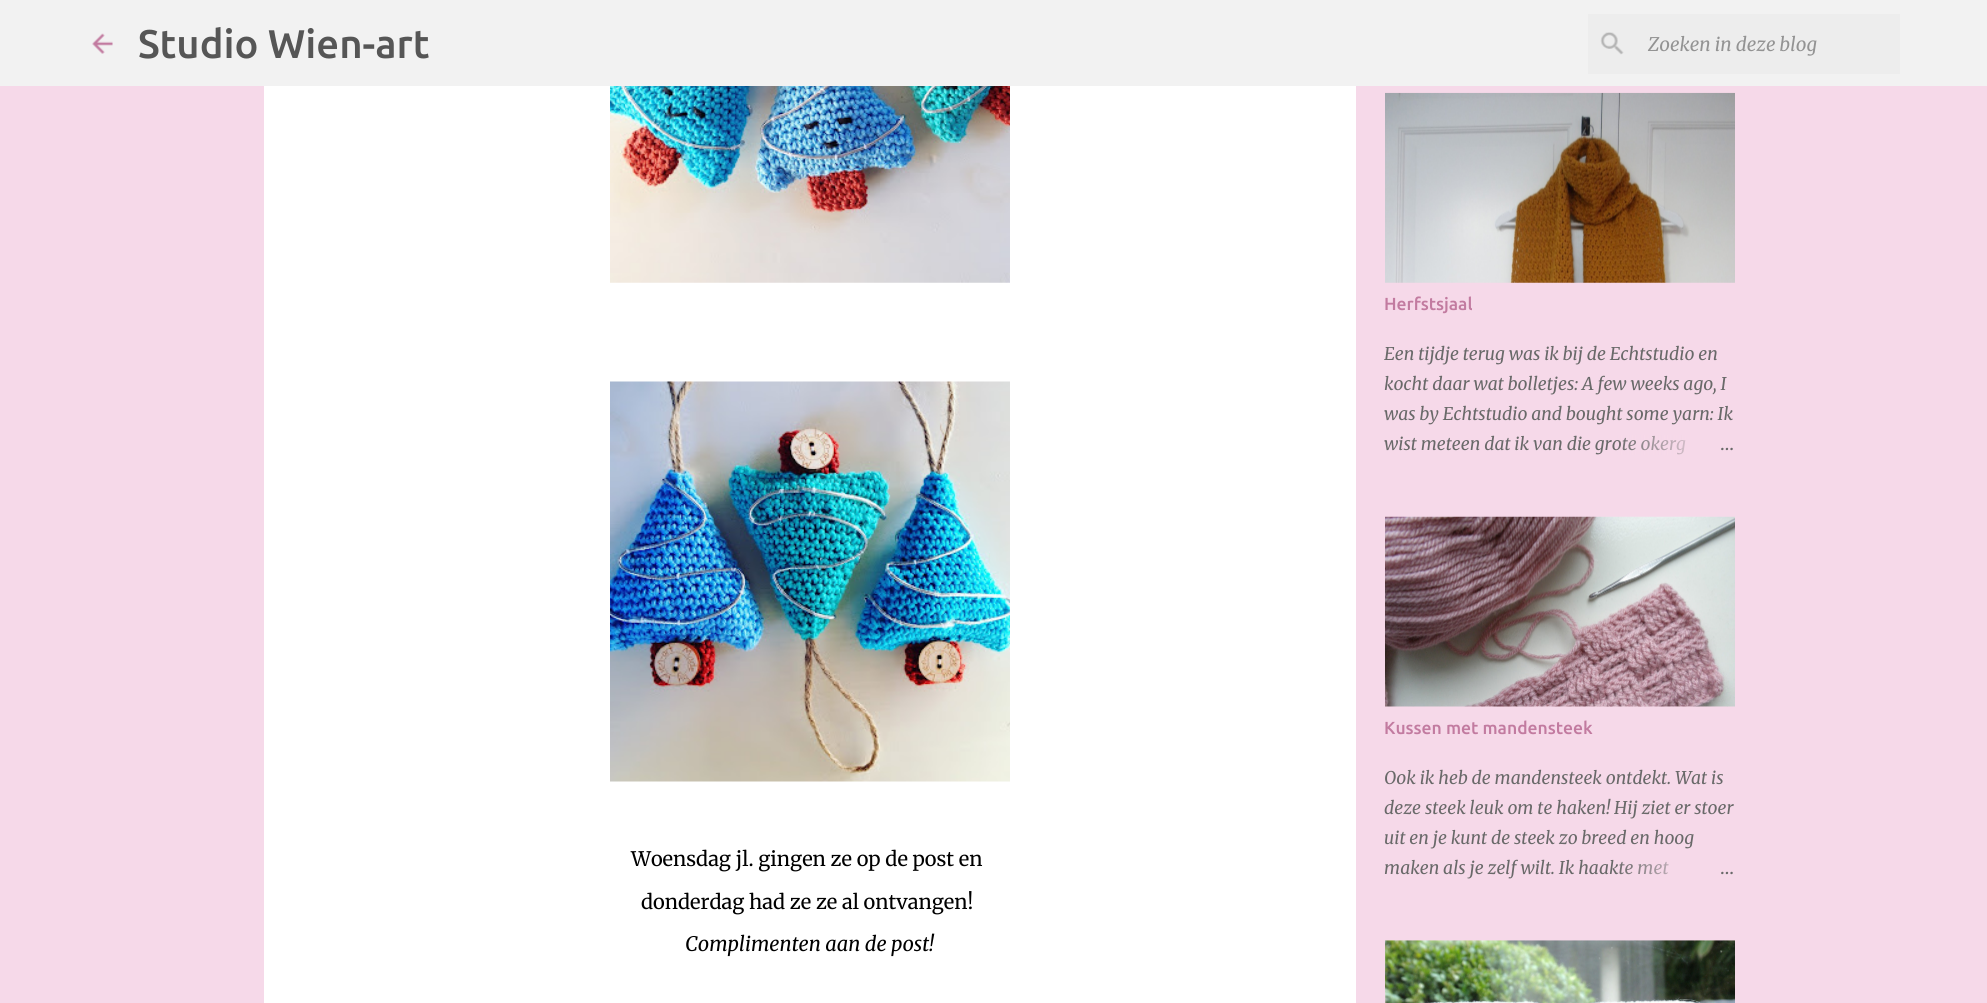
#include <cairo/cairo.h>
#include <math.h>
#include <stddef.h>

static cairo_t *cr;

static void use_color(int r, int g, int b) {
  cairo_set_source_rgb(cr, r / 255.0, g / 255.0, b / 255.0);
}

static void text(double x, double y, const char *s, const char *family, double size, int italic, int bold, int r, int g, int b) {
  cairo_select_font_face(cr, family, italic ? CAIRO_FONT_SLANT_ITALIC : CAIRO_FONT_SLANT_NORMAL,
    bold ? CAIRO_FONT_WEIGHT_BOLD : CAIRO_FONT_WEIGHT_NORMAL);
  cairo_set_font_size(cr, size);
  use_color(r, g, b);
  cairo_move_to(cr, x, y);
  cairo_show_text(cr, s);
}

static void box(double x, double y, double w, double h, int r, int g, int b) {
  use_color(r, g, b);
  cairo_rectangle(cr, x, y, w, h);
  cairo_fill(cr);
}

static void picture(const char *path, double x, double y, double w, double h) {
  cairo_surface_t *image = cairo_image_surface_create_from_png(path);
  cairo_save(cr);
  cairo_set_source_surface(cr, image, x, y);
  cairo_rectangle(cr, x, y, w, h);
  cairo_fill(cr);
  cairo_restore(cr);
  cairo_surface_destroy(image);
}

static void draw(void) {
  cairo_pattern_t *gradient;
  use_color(246, 217, 233);
  cairo_paint(cr);
  box(0, 0, 1987, 86, 242, 242, 242);
  picture("img_01.png", 92, 33, 21, 21);
  box(1588, 14, 312, 60, 237, 237, 237);
  picture("img_02.png", 1600, 32, 24, 23);
  picture("img_03.png", 1385, 92, 350, 191);
  picture("img_04.png", 1385, 516, 350, 191);
  picture("img_05.png", 1385, 940, 350, 63);
  box(264, 86, 1092, 917, 255, 255, 255);
  picture("img_06.png", 610, 86, 400, 197);
  picture("img_07.png", 610, 381, 400, 401);
  text(138, 58, "Studio Wien-art", "Ubuntu Medium", 40, 0, 0, 86, 86, 86);
  text(1648, 51, "Zoeken in deze blog", "Merriweather", 18.75, 1, 0, 147, 147, 147);
  text(1384, 310, "Herfstsjaal", "Ubuntu Medium", 17.5, 0, 0, 194, 123, 160);
  text(1384, 360, "Een tijdje terug was ik bij de Echtstudio en", "Merriweather", 17.5, 1, 0, 105, 105, 105);
  text(1384, 390, "kocht daar wat bolletjes: A few weeks ago, I", "Merriweather", 17.5, 1, 0, 105, 105, 105);
  text(1384, 420, "was by Echtstudio and bought some yarn: Ik", "Merriweather", 17.5, 1, 0, 105, 105, 105);
  text(1384, 450, "wist meteen dat ik van die grote okerg", "Merriweather", 17.5, 1, 0, 105, 105, 105);
  gradient = cairo_pattern_create_linear(1735, 444, 1615, 444);
  cairo_pattern_add_color_stop_rgba(gradient, 0, 0.965, 0.851, 0.914, 1);
  cairo_pattern_add_color_stop_rgba(gradient, 0.2, 0.965, 0.851, 0.914, 1);
  cairo_pattern_add_color_stop_rgba(gradient, 1, 0.965, 0.851, 0.914, 0);
  cairo_set_source(cr, gradient);
  cairo_pattern_destroy(gradient);
  cairo_rectangle(cr, 1617, 435, 69, 20);
  cairo_fill(cr);
  text(1720, 450, "…", "Merriweather Light", 17.5, 0, 0, 105, 105, 105);
  text(1384, 734, "Kussen met mandensteek", "Ubuntu Medium", 17.5, 0, 0, 194, 123, 160);
  text(1384, 784, "Ook ik heb de mandensteek ontdekt. Wat is", "Merriweather", 17.5, 1, 0, 105, 105, 105);
  text(1384, 814, "deze steek leuk om te haken! Hij ziet er stoer", "Merriweather", 17.5, 1, 0, 105, 105, 105);
  text(1384, 844, "uit en je kunt de steek zo breed en hoog", "Merriweather", 17.5, 1, 0, 105, 105, 105);
  text(1384, 874, "maken als je zelf wilt. Ik haakte met", "Merriweather", 17.5, 1, 0, 105, 105, 105);
  gradient = cairo_pattern_create_linear(1735, 868, 1615, 868);
  cairo_pattern_add_color_stop_rgba(gradient, 0, 0.965, 0.851, 0.914, 1);
  cairo_pattern_add_color_stop_rgba(gradient, 0.2, 0.965, 0.851, 0.914, 1);
  cairo_pattern_add_color_stop_rgba(gradient, 1, 0.965, 0.851, 0.914, 0);
  cairo_set_source(cr, gradient);
  cairo_pattern_destroy(gradient);
  cairo_rectangle(cr, 1617, 861, 52, 14);
  cairo_fill(cr);
  text(1720, 874, "…", "Merriweather Light", 17.5, 0, 0, 105, 105, 105);
  text(631, 866, "Woensdag jl. gingen ze op de post en", "Merriweather Light", 20, 0, 0, 0, 0, 0);
  text(641, 909, "donderdag had ze ze al ontvangen!", "Merriweather Light", 20, 0, 0, 0, 0, 0);
  text(685, 951, "Complimenten aan de post!", "Merriweather", 20, 1, 0, 0, 0, 0);
}

int main(void) {
  cairo_surface_t *surface = cairo_image_surface_create(CAIRO_FORMAT_RGB24, 1987, 1003);
  cr = cairo_create(surface);
  cairo_font_options_t *options = cairo_font_options_create();
  cairo_font_options_set_hint_metrics(options, CAIRO_HINT_METRICS_OFF);
  cairo_font_options_set_hint_style(options, CAIRO_HINT_STYLE_NONE);
  cairo_set_font_options(cr, options);
  cairo_set_miter_limit(cr, 4);
  draw();
  cairo_surface_write_to_png(surface, "out.png");
  cairo_font_options_destroy(options);
  cairo_destroy(cr);
  cairo_surface_destroy(surface);
  return 0;
}
